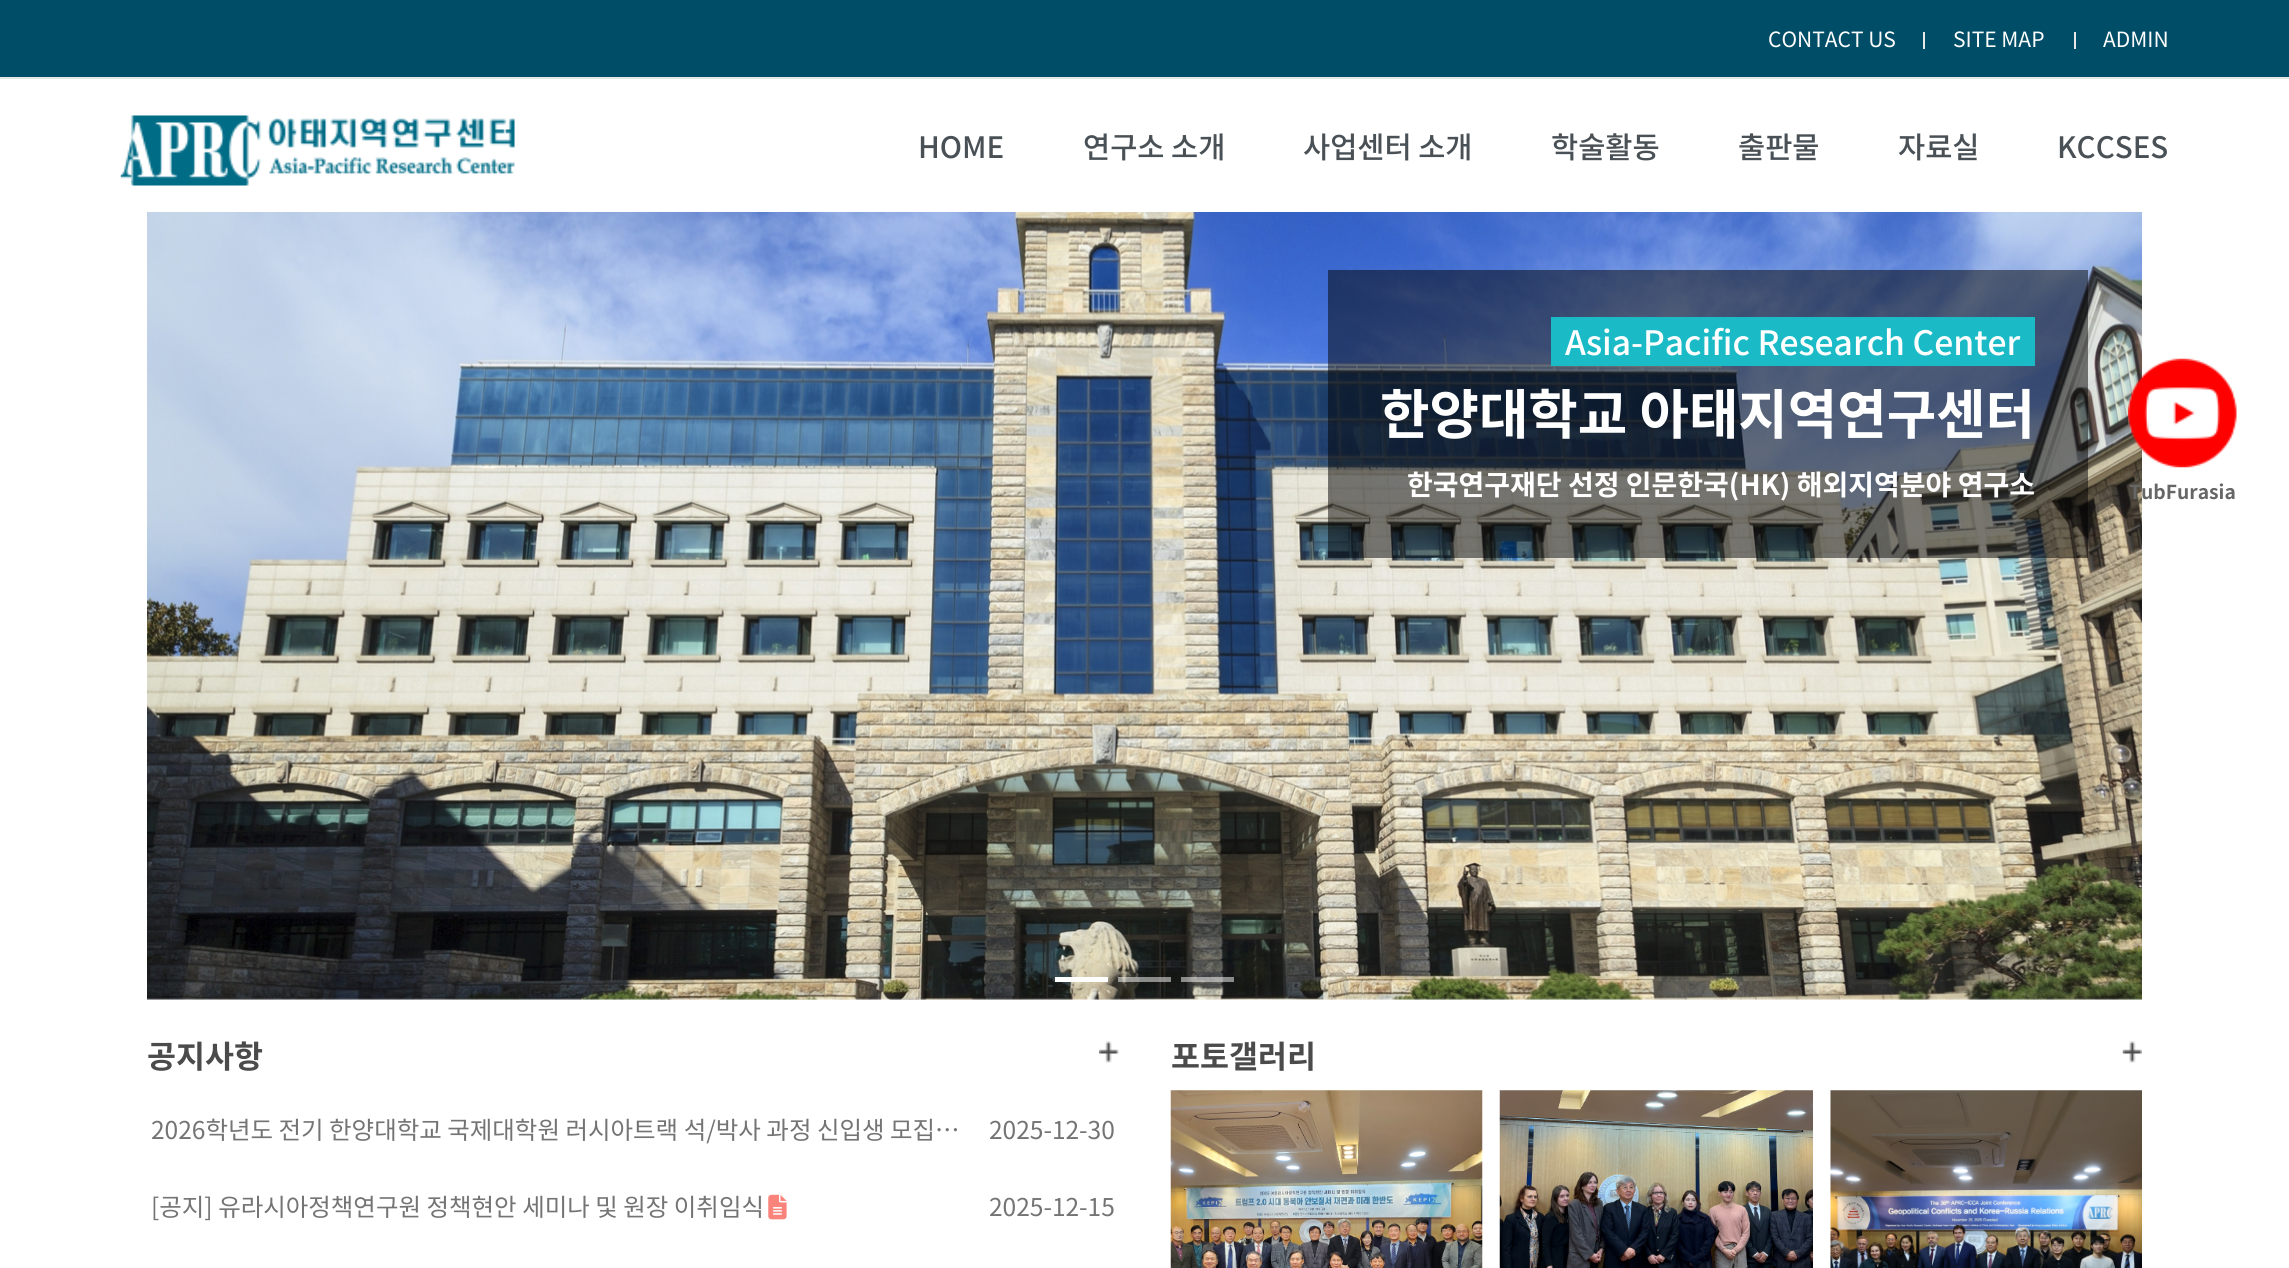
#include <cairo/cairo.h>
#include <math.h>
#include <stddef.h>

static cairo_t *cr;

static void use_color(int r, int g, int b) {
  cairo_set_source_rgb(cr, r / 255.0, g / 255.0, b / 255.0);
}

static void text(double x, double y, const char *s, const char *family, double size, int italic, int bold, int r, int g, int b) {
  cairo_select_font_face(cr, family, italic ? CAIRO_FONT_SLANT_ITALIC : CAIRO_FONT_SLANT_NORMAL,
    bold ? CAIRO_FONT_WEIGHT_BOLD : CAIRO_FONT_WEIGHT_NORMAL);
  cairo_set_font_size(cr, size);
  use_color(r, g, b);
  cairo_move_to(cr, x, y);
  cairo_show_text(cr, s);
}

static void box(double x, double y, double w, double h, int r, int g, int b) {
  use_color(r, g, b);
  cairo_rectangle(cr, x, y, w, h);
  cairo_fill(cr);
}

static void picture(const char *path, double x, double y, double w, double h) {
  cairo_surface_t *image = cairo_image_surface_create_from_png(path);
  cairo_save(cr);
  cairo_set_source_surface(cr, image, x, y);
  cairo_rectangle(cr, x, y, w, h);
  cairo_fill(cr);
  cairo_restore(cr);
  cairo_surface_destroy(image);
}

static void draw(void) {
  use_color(255, 255, 255);
  cairo_paint(cr);
  box(0, 0, 2289, 77, 0, 77, 103);
  box(0, 77, 2289, 2, 228, 230, 231);
  box(1923, 32, 2, 17, 232, 232, 232);
  box(2074, 32, 2, 17, 232, 232, 232);
  picture("img_01.png", 120, 115, 395, 71);
  picture("img_02.png", 147, 212, 1995, 788);
  cairo_set_source_rgba(cr, 0, 0, 0, 0.5);
  cairo_rectangle(cr, 1328, 270, 760, 288);
  cairo_fill(cr);
  box(1551, 317, 484, 49, 26, 187, 199);
  box(1055, 977, 53, 5, 255, 255, 255);
  cairo_set_source_rgba(cr, 1, 1, 1, 0.5);
  cairo_rectangle(cr, 1118, 977, 53, 5);
  cairo_fill(cr);
  cairo_rectangle(cr, 1181, 977, 53, 5);
  cairo_fill(cr);
  picture("img_03.png", 2128, 358, 109, 110);
  picture("img_04.png", 1099, 1041, 20, 22);
  picture("img_05.png", 768, 1194, 19, 26);
  picture("img_06.png", 2122, 1041, 20, 22);
  picture("img_07.png", 1170, 1090, 313, 178);
  picture("img_08.png", 1499, 1090, 314, 178);
  picture("img_09.png", 1830, 1090, 312, 178);
  text(1768, 47, "CONTACT US", "Noto Sans KR", 21, 0, 0, 255, 255, 255);
  text(1953, 47, "SITE MAP", "Noto Sans KR", 21, 0, 0, 255, 255, 255);
  text(2103, 47, "ADMIN", "Noto Sans KR", 21, 0, 0, 255, 255, 255);
  text(918, 158, "HOME", "Noto Sans KR Medium", 29.5, 0, 0, 74, 81, 86);
  text(1083, 158, "연구소 소개", "Noto Sans KR Medium", 29.5, 0, 0, 74, 81, 86);
  text(1303, 158, "사업센터 소개", "Noto Sans KR Medium", 29.5, 0, 0, 74, 81, 86);
  text(1551, 158, "학술활동", "Noto Sans KR Medium", 29.5, 0, 0, 74, 81, 86);
  text(1738, 158, "출판물", "Noto Sans KR Medium", 29.5, 0, 0, 74, 81, 86);
  text(1898, 158, "자료실", "Noto Sans KR Medium", 29.5, 0, 0, 74, 81, 86);
  text(2057, 158, "KCCSES", "Noto Sans KR Medium", 29.5, 0, 0, 74, 81, 86);
  text(1565, 355, "Asia-Pacific Research Center", "Noto Sans KR Medium", 33.6, 0, 0, 255, 255, 255);
  text(1380, 434, "한양대학교 아태지역연구센터", "Noto Sans KR", 53.75, 0, 1, 255, 255, 255);
  text(1407, 495, "한국연구재단 선정 인문한국(HK) 해외지역분야 연구소", "Noto Sans KR", 28, 0, 1, 255, 255, 255);
  text(2129, 499, "TubFurasia", "Noto Sans KR", 19.25, 0, 1, 102, 102, 102);
  text(147, 1068, "공지사항", "Noto Sans KR", 31.5, 0, 1, 75, 75, 75);
  text(151, 1139, "2026학년도 전기 한양대학교 국제대학원 러시아트랙 석/박사 과정 신입생 모집…", "Noto Sans KR", 24.5, 0, 0, 116, 116, 116);
  text(989, 1139, "2025-12-30", "Noto Sans KR", 24.5, 0, 0, 116, 116, 116);
  text(151, 1216, "[공지] 유라시아정책연구원 정책현안 세미나 및 원장 이취임식", "Noto Sans KR", 24.5, 0, 0, 116, 116, 116);
  text(989, 1216, "2025-12-15", "Noto Sans KR", 24.5, 0, 0, 116, 116, 116);
  text(1171, 1068, "포토갤러리", "Noto Sans KR", 31.5, 0, 1, 75, 75, 75);
}

int main(void) {
  cairo_surface_t *surface = cairo_image_surface_create(CAIRO_FORMAT_RGB24, 2289, 1268);
  cr = cairo_create(surface);
  cairo_font_options_t *options = cairo_font_options_create();
  cairo_font_options_set_hint_metrics(options, CAIRO_HINT_METRICS_OFF);
  cairo_font_options_set_hint_style(options, CAIRO_HINT_STYLE_NONE);
  cairo_set_font_options(cr, options);
  cairo_set_miter_limit(cr, 4);
  draw();
  cairo_surface_write_to_png(surface, "out.png");
  cairo_font_options_destroy(options);
  cairo_destroy(cr);
  cairo_surface_destroy(surface);
  return 0;
}
